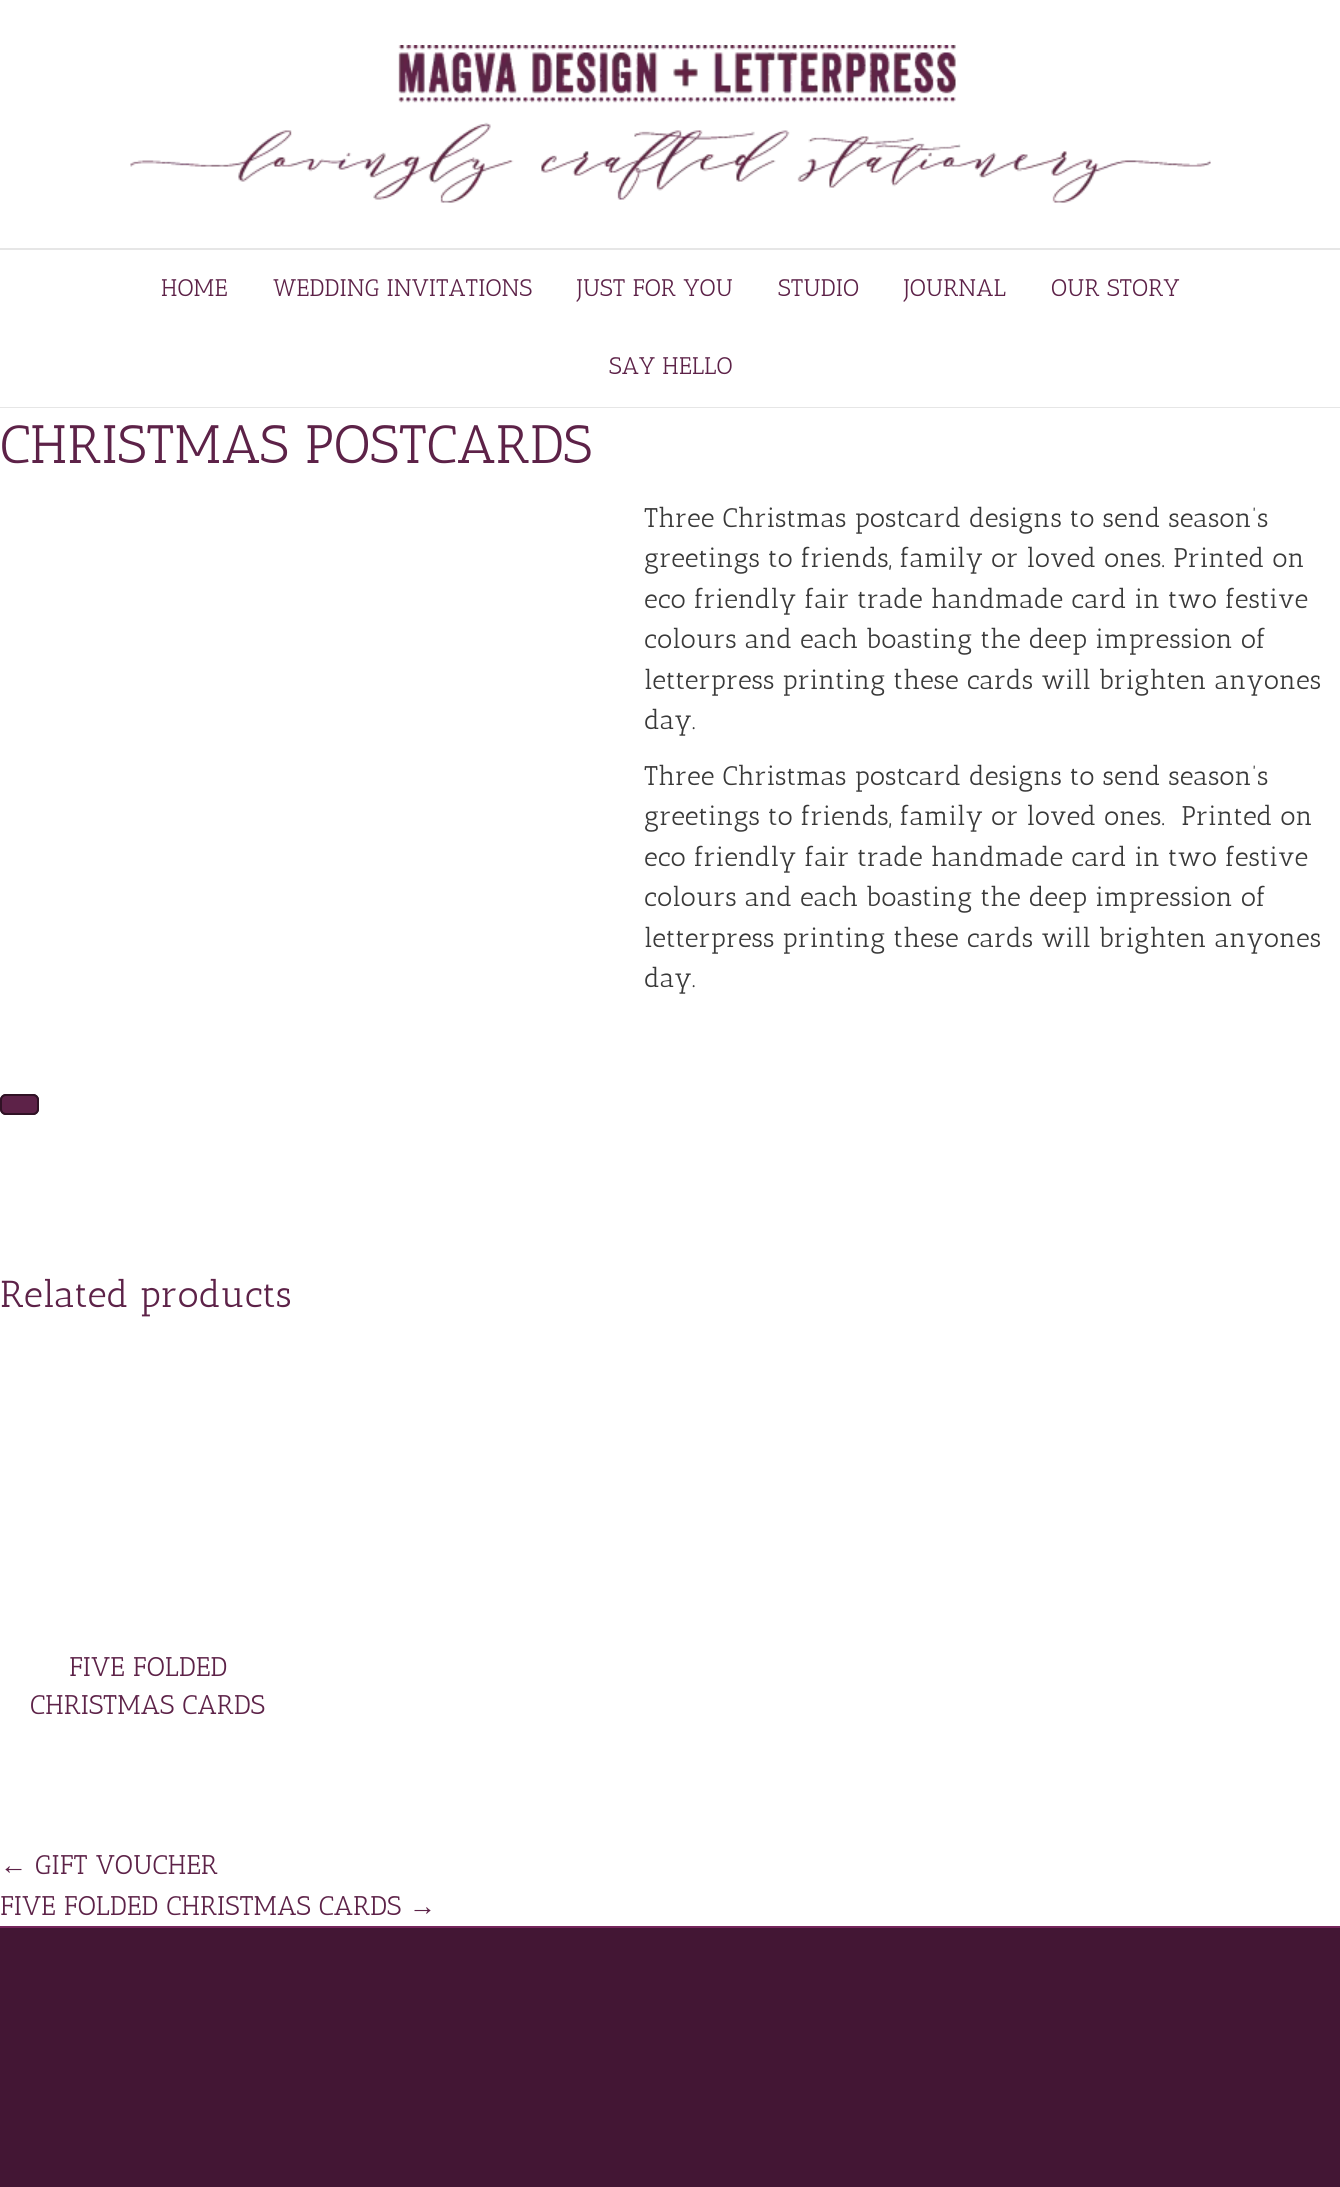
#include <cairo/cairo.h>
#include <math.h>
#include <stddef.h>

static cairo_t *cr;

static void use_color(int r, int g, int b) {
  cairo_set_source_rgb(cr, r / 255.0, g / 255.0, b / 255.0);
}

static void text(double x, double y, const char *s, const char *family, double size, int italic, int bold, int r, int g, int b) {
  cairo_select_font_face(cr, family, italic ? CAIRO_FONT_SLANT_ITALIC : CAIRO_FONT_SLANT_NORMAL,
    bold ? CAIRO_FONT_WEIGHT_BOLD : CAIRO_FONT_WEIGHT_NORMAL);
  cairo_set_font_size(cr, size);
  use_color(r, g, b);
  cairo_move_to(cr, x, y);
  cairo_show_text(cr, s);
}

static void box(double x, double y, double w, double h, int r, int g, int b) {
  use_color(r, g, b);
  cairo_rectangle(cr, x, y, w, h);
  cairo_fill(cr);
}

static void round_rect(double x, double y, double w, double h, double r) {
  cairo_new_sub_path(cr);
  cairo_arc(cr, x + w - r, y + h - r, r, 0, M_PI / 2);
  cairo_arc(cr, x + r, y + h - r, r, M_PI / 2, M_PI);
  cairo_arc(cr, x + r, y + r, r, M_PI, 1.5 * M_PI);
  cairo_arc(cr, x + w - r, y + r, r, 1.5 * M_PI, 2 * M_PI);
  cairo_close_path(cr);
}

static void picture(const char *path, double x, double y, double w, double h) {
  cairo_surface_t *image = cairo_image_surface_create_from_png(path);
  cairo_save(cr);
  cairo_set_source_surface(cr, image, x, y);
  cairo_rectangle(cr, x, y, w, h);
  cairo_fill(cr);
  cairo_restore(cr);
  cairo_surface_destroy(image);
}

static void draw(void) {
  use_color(255, 255, 255);
  cairo_paint(cr);
  picture("img_01.png", 130, 45, 1081, 158);
  box(0, 248, 1340, 2, 230, 230, 230);
  box(0, 407, 1340, 1, 230, 230, 230);
  box(0, 1928, 1340, 259, 67, 22, 52);
  box(0, 1926, 1340, 2, 117, 38, 91);
  round_rect(1, 1095, 37, 19, 5);
  use_color(48, 18, 37);
  cairo_stroke(cr);
  use_color(93, 34, 72);
  round_rect(1, 1095, 37, 19, 5);
  cairo_fill_preserve(cr);
  use_color(48, 18, 37);
  cairo_stroke(cr);
  text(161, 296, "HOME", "Antic Slab", 24, 0, 0, 93, 34, 72);
  text(273, 296, "WEDDING INVITATIONS", "Antic Slab", 24, 0, 0, 93, 34, 72);
  text(577, 296, "JUST FOR YOU", "Antic Slab", 24, 0, 0, 93, 34, 72);
  text(778, 296, "STUDIO", "Antic Slab", 24, 0, 0, 93, 34, 72);
  text(904, 296, "JOURNAL", "Antic Slab", 24, 0, 0, 93, 34, 72);
  text(1051, 296, "OUR STORY", "Antic Slab", 24, 0, 0, 93, 34, 72);
  text(609, 374, "SAY HELLO", "Antic Slab", 24, 0, 0, 93, 34, 72);
  text(0, 463, "CHRISTMAS POSTCARDS", "Antic Slab", 54, 0, 0, 93, 34, 72);
  text(644, 527, "Three Christmas postcard designs to send season’s", "Antic Slab", 27, 0, 0, 57, 57, 57);
  text(644, 567, "greetings to friends, family or loved ones. Printed on", "Antic Slab", 27, 0, 0, 57, 57, 57);
  text(644, 608, "eco friendly fair trade handmade card in two festive", "Antic Slab", 27, 0, 0, 57, 57, 57);
  text(644, 648, "colours and each boasting the deep impression of", "Antic Slab", 27, 0, 0, 57, 57, 57);
  text(644, 689, "letterpress printing these cards will brighten anyones", "Antic Slab", 27, 0, 0, 57, 57, 57);
  text(644, 729, "day.", "Antic Slab", 27, 0, 0, 57, 57, 57);
  text(644, 785, "Three Christmas postcard designs to send season’s", "Antic Slab", 27, 0, 0, 57, 57, 57);
  text(644, 825, "greetings to friends, family or loved ones.  Printed on", "Antic Slab", 27, 0, 0, 57, 57, 57);
  text(644, 866, "eco friendly fair trade handmade card in two festive", "Antic Slab", 27, 0, 0, 57, 57, 57);
  text(644, 906, "colours and each boasting the deep impression of", "Antic Slab", 27, 0, 0, 57, 57, 57);
  text(644, 947, "letterpress printing these cards will brighten anyones", "Antic Slab", 27, 0, 0, 57, 57, 57);
  text(644, 987, "day.", "Antic Slab", 27, 0, 0, 57, 57, 57);
  text(0, 1307, "Related products", "Antic Slab", 37.5, 0, 0, 93, 34, 72);
  text(69, 1676, "FIVE FOLDED", "Antic Slab", 27, 0, 0, 93, 34, 72);
  text(30, 1714, "CHRISTMAS CARDS", "Antic Slab", 27, 0, 0, 93, 34, 72);
  text(0, 1874, "←", "Liberation Serif", 27, 0, 0, 93, 34, 72);
  text(35, 1874, "GIFT VOUCHER", "Antic Slab", 27, 0, 0, 93, 34, 72);
  text(0, 1915, "FIVE FOLDED CHRISTMAS CARDS", "Antic Slab", 27, 0, 0, 93, 34, 72);
  text(409, 1915, "→", "Liberation Serif", 27, 0, 0, 93, 34, 72);
}

int main(void) {
  cairo_surface_t *surface = cairo_image_surface_create(CAIRO_FORMAT_RGB24, 1340, 2187);
  cr = cairo_create(surface);
  cairo_font_options_t *options = cairo_font_options_create();
  cairo_font_options_set_hint_metrics(options, CAIRO_HINT_METRICS_OFF);
  cairo_font_options_set_hint_style(options, CAIRO_HINT_STYLE_NONE);
  cairo_set_font_options(cr, options);
  cairo_set_miter_limit(cr, 4);
  draw();
  cairo_surface_write_to_png(surface, "out.png");
  cairo_font_options_destroy(options);
  cairo_destroy(cr);
  cairo_surface_destroy(surface);
  return 0;
}
